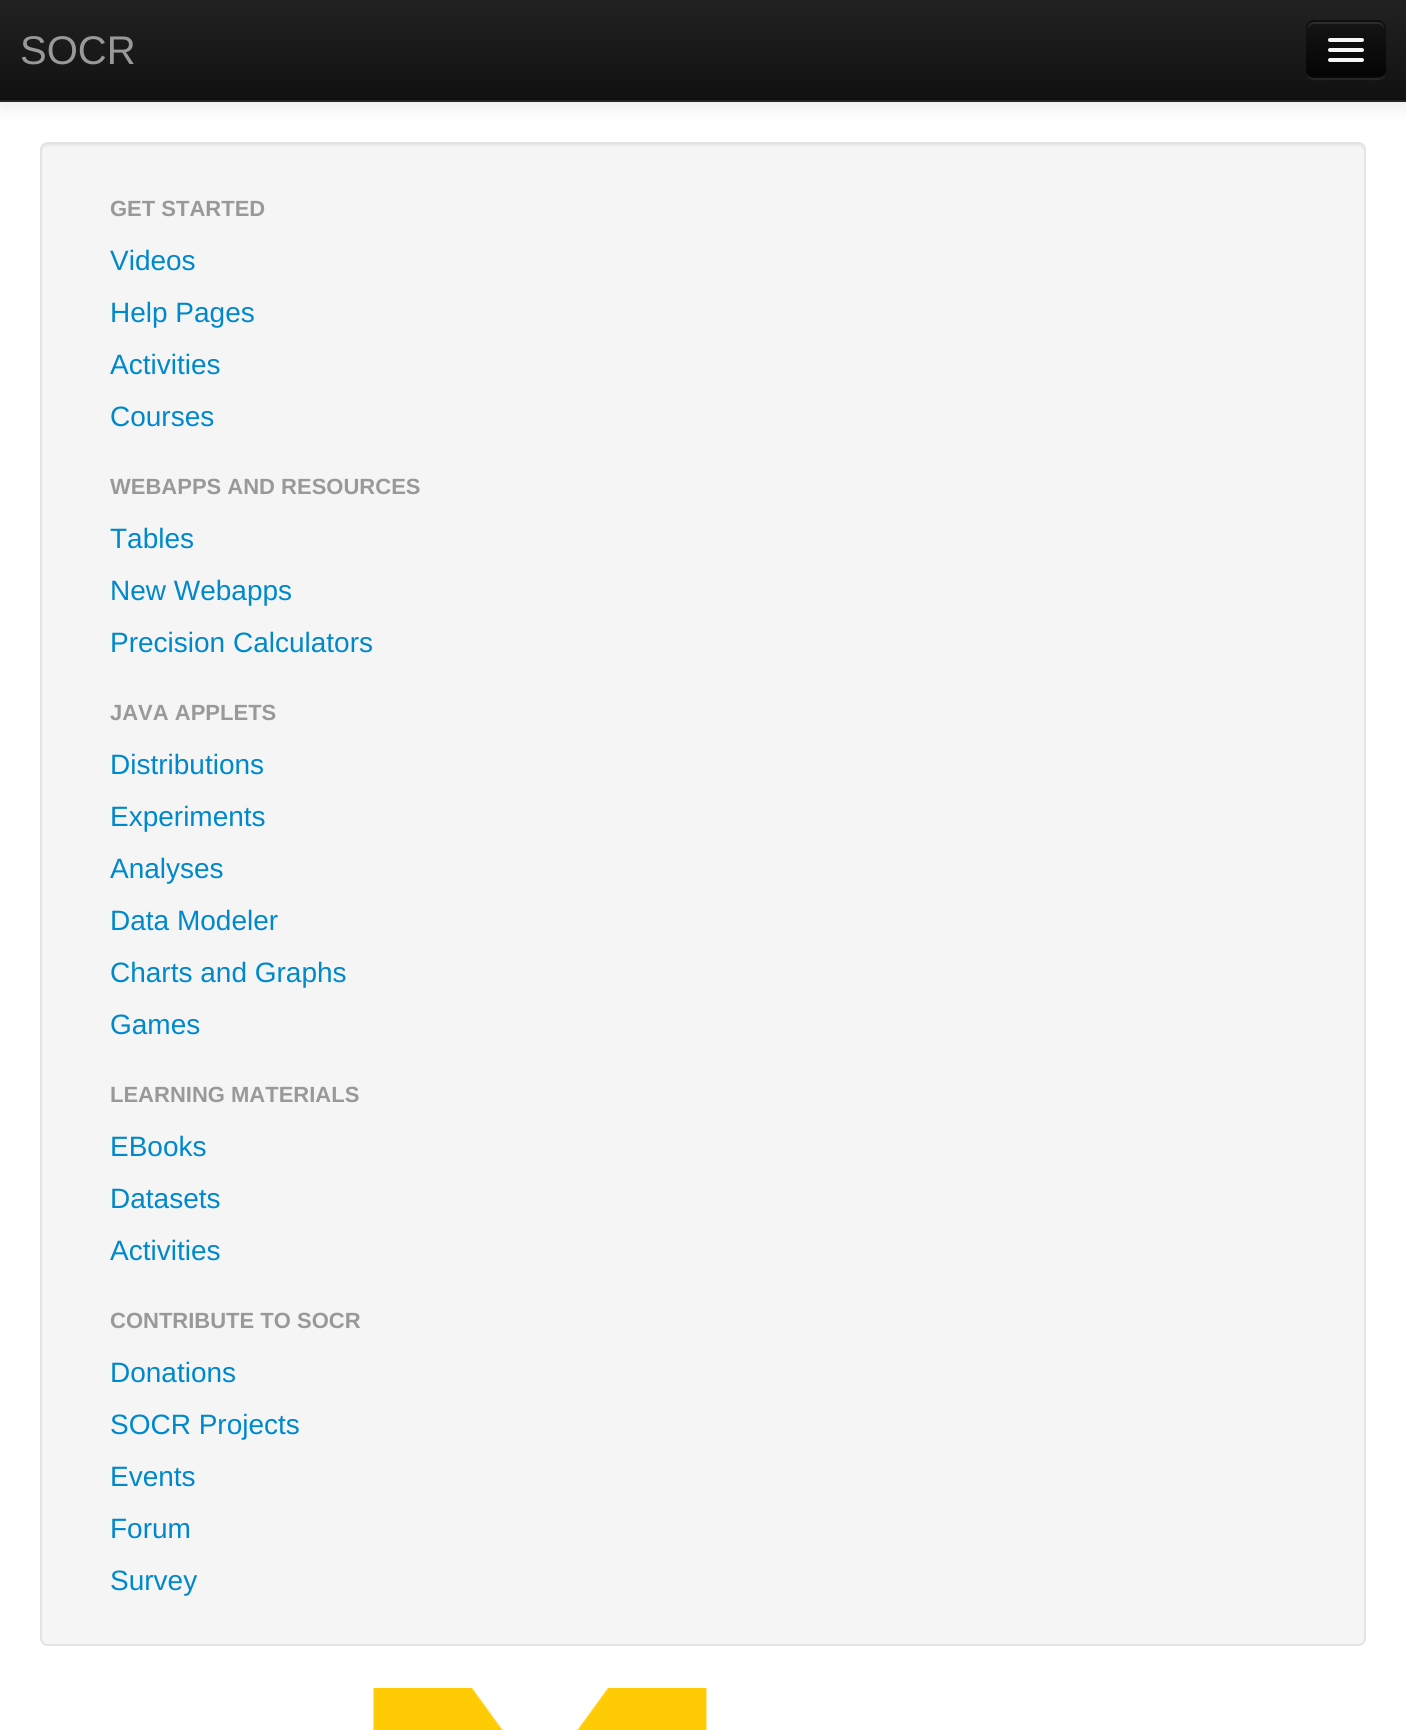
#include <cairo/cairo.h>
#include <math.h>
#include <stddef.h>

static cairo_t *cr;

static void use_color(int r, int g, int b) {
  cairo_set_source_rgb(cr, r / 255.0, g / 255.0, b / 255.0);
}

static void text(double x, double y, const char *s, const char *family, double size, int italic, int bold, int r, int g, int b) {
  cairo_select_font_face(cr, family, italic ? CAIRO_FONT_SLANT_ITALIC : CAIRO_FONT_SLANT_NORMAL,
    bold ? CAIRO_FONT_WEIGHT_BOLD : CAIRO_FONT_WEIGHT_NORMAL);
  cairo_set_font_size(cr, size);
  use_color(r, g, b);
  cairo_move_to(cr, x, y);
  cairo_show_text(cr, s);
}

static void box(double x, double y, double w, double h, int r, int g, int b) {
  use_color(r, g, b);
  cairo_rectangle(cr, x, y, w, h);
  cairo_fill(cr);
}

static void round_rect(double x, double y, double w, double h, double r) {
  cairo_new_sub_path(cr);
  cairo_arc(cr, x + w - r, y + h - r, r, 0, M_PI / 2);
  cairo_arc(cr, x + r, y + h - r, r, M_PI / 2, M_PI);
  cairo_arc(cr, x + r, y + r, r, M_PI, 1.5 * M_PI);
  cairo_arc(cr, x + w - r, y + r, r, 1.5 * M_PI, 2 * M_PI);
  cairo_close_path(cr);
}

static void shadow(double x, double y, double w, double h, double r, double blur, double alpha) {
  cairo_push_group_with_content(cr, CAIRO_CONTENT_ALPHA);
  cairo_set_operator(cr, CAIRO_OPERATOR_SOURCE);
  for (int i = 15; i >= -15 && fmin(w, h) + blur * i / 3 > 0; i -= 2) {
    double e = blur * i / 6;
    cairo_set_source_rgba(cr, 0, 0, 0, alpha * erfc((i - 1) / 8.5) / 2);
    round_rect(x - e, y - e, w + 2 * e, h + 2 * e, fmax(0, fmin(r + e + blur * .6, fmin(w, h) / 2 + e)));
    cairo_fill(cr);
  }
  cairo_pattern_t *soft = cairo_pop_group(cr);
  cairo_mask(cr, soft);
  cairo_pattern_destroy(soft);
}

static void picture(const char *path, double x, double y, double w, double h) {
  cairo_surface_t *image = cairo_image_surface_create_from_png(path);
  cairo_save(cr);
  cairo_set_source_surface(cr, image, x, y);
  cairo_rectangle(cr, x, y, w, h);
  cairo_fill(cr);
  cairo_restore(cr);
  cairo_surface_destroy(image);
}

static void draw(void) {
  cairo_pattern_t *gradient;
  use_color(255, 255, 255);
  cairo_paint(cr);
  use_color(0, 0, 0);
  shadow(0, 2, 1406, 102, 0, 10, 0.1);
  gradient = cairo_pattern_create_linear(703, 0, 703, 100);
  cairo_pattern_add_color_stop_rgba(gradient, 0, 0.133, 0.133, 0.133, 1);
  cairo_pattern_add_color_stop_rgba(gradient, 1, 0.067, 0.067, 0.067, 1);
  cairo_set_source(cr, gradient);
  cairo_pattern_destroy(gradient);
  cairo_rectangle(cr, 0, 0, 1406, 98);
  cairo_fill(cr);
  box(0, 98, 1406, 2, 15, 15, 15);
  box(0, 100, 1406, 2, 37, 37, 37);
  use_color(38, 38, 38);
  cairo_new_path(cr);
  cairo_move_to(cr, 1306, 70);
  cairo_curve_to(cr, 1306, 82, 1315, 80, 1325, 80);
  cairo_line_to(cr, 1367, 80);
  cairo_curve_to(cr, 1377, 80, 1386, 82, 1386, 70);
  cairo_curve_to(cr, 1386, 74, 1382, 78, 1378, 78);
  cairo_line_to(cr, 1314, 78);
  cairo_curve_to(cr, 1310, 78, 1306, 74, 1306, 70);
  cairo_close_path(cr);
  cairo_fill(cr);
  use_color(14, 14, 14);
  round_rect(1306, 20, 80, 58, 8);
  cairo_fill(cr);
  cairo_save(cr);
  round_rect(1306, 20, 80, 58, 8);
  cairo_clip(cr);
  gradient = cairo_pattern_create_linear(1346, 22, 1346, 76);
  cairo_pattern_add_color_stop_rgba(gradient, 0, 0.082, 0.082, 0.082, 1);
  cairo_pattern_add_color_stop_rgba(gradient, 1, 0.016, 0.016, 0.016, 1);
  cairo_set_source(cr, gradient);
  cairo_pattern_destroy(gradient);
  cairo_rectangle(cr, 1306, 22, 80, 54);
  cairo_fill(cr);
  cairo_restore(cr);
  use_color(44, 44, 44);
  cairo_new_path(cr);
  cairo_move_to(cr, 1314, 24);
  cairo_line_to(cr, 1378, 24);
  cairo_curve_to(cr, 1381, 24, 1384, 27, 1384, 30);
  cairo_curve_to(cr, 1384, 20, 1376, 22, 1367, 22);
  cairo_line_to(cr, 1325, 22);
  cairo_curve_to(cr, 1316, 22, 1308, 20, 1308, 30);
  cairo_curve_to(cr, 1308, 27, 1311, 24, 1314, 24);
  cairo_close_path(cr);
  cairo_fill(cr);
  cairo_new_path(cr);
  cairo_move_to(cr, 1383, 75);
  cairo_curve_to(cr, 1381.5, 76.5, 1380, 77, 1378, 77);
  cairo_line_to(cr, 1314, 77);
  cairo_curve_to(cr, 1312, 77, 1310.5, 76.5, 1309, 75);
  cairo_set_source_rgba(cr, 0, 0, 0, 0.25);
  cairo_stroke(cr);
  use_color(11, 11, 11);
  cairo_new_path(cr);
  cairo_move_to(cr, 1328.5, 41);
  cairo_curve_to(cr, 1326, 45, 1335, 44, 1335.5, 44);
  cairo_line_to(cr, 1356.5, 44);
  cairo_curve_to(cr, 1357, 44, 1366, 45, 1363.5, 41);
  cairo_curve_to(cr, 1363.5, 41.5, 1362.5, 42, 1362, 42);
  cairo_line_to(cr, 1330, 42);
  cairo_curve_to(cr, 1329.5, 42, 1328.5, 41.5, 1328.5, 41);
  cairo_close_path(cr);
  cairo_fill(cr);
  use_color(245, 245, 245);
  round_rect(1328, 38, 36, 4, 2);
  cairo_fill(cr);
  use_color(8, 8, 8);
  cairo_new_path(cr);
  cairo_move_to(cr, 1328.5, 51);
  cairo_curve_to(cr, 1326, 55, 1335, 54, 1335.5, 54);
  cairo_line_to(cr, 1356.5, 54);
  cairo_curve_to(cr, 1357, 54, 1366, 55, 1363.5, 51);
  cairo_curve_to(cr, 1363.5, 51.5, 1362.5, 52, 1362, 52);
  cairo_line_to(cr, 1330, 52);
  cairo_curve_to(cr, 1329.5, 52, 1328.5, 51.5, 1328.5, 51);
  cairo_close_path(cr);
  cairo_fill(cr);
  use_color(245, 245, 245);
  round_rect(1328, 48, 36, 4, 2);
  cairo_fill(cr);
  round_rect(1328, 58, 36, 4, 2);
  cairo_fill(cr);
  round_rect(40, 142, 1326, 1504, 8);
  cairo_fill(cr);
  use_color(233, 233, 233);
  cairo_new_path(cr);
  cairo_move_to(cr, 48, 146);
  cairo_line_to(cr, 1358, 146);
  cairo_curve_to(cr, 1361, 146, 1364, 149, 1364, 152);
  cairo_line_to(cr, 1364, 150);
  cairo_curve_to(cr, 1364, 147, 1361, 144, 1358, 144);
  cairo_line_to(cr, 48, 144);
  cairo_curve_to(cr, 45, 144, 42, 147, 42, 150);
  cairo_line_to(cr, 42, 152);
  cairo_curve_to(cr, 42, 149, 45, 146, 48, 146);
  cairo_close_path(cr);
  cairo_fill(cr);
  round_rect(41, 143, 1324, 1502, 7);
  use_color(227, 227, 227);
  cairo_stroke(cr);
  picture("img_01.png", 373, 1688, 334, 42);
  text(20, 64, "SOCR", "Liberation Sans", 40, 0, 0, 153, 153, 153);
  text(110, 216, "GET STARTED", "Liberation Sans", 22, 0, 1, 153, 153, 153);
  text(110, 270, "Videos", "Liberation Sans", 28, 0, 0, 0, 136, 204);
  text(110, 322, "Help Pages", "Liberation Sans", 28, 0, 0, 0, 136, 204);
  text(110, 374, "Activities", "Liberation Sans", 28, 0, 0, 0, 136, 204);
  text(110, 426, "Courses", "Liberation Sans", 28, 0, 0, 0, 136, 204);
  text(110, 494, "WEBAPPS AND RESOURCES", "Liberation Sans", 22, 0, 1, 153, 153, 153);
  text(110, 548, "Tables", "Liberation Sans", 28, 0, 0, 0, 136, 204);
  text(110, 600, "New Webapps", "Liberation Sans", 28, 0, 0, 0, 136, 204);
  text(110, 652, "Precision Calculators", "Liberation Sans", 28, 0, 0, 0, 136, 204);
  text(110, 720, "JAVA APPLETS", "Liberation Sans", 22, 0, 1, 153, 153, 153);
  text(110, 774, "Distributions", "Liberation Sans", 28, 0, 0, 0, 136, 204);
  text(110, 826, "Experiments", "Liberation Sans", 28, 0, 0, 0, 136, 204);
  text(110, 878, "Analyses", "Liberation Sans", 28, 0, 0, 0, 136, 204);
  text(110, 930, "Data Modeler", "Liberation Sans", 28, 0, 0, 0, 136, 204);
  text(110, 982, "Charts and Graphs", "Liberation Sans", 28, 0, 0, 0, 136, 204);
  text(110, 1034, "Games", "Liberation Sans", 28, 0, 0, 0, 136, 204);
  text(110, 1102, "LEARNING MATERIALS", "Liberation Sans", 22, 0, 1, 153, 153, 153);
  text(110, 1156, "EBooks", "Liberation Sans", 28, 0, 0, 0, 136, 204);
  text(110, 1208, "Datasets", "Liberation Sans", 28, 0, 0, 0, 136, 204);
  text(110, 1260, "Activities", "Liberation Sans", 28, 0, 0, 0, 136, 204);
  text(110, 1328, "CONTRIBUTE TO SOCR", "Liberation Sans", 22, 0, 1, 153, 153, 153);
  text(110, 1382, "Donations", "Liberation Sans", 28, 0, 0, 0, 136, 204);
  text(110, 1434, "SOCR Projects", "Liberation Sans", 28, 0, 0, 0, 136, 204);
  text(110, 1486, "Events", "Liberation Sans", 28, 0, 0, 0, 136, 204);
  text(110, 1538, "Forum", "Liberation Sans", 28, 0, 0, 0, 136, 204);
  text(110, 1590, "Survey", "Liberation Sans", 28, 0, 0, 0, 136, 204);
}

int main(void) {
  cairo_surface_t *surface = cairo_image_surface_create(CAIRO_FORMAT_RGB24, 1406, 1730);
  cr = cairo_create(surface);
  cairo_font_options_t *options = cairo_font_options_create();
  cairo_font_options_set_hint_metrics(options, CAIRO_HINT_METRICS_OFF);
  cairo_font_options_set_hint_style(options, CAIRO_HINT_STYLE_NONE);
  cairo_set_font_options(cr, options);
  cairo_set_miter_limit(cr, 4);
  draw();
  cairo_surface_write_to_png(surface, "out.png");
  cairo_font_options_destroy(options);
  cairo_destroy(cr);
  cairo_surface_destroy(surface);
  return 0;
}
